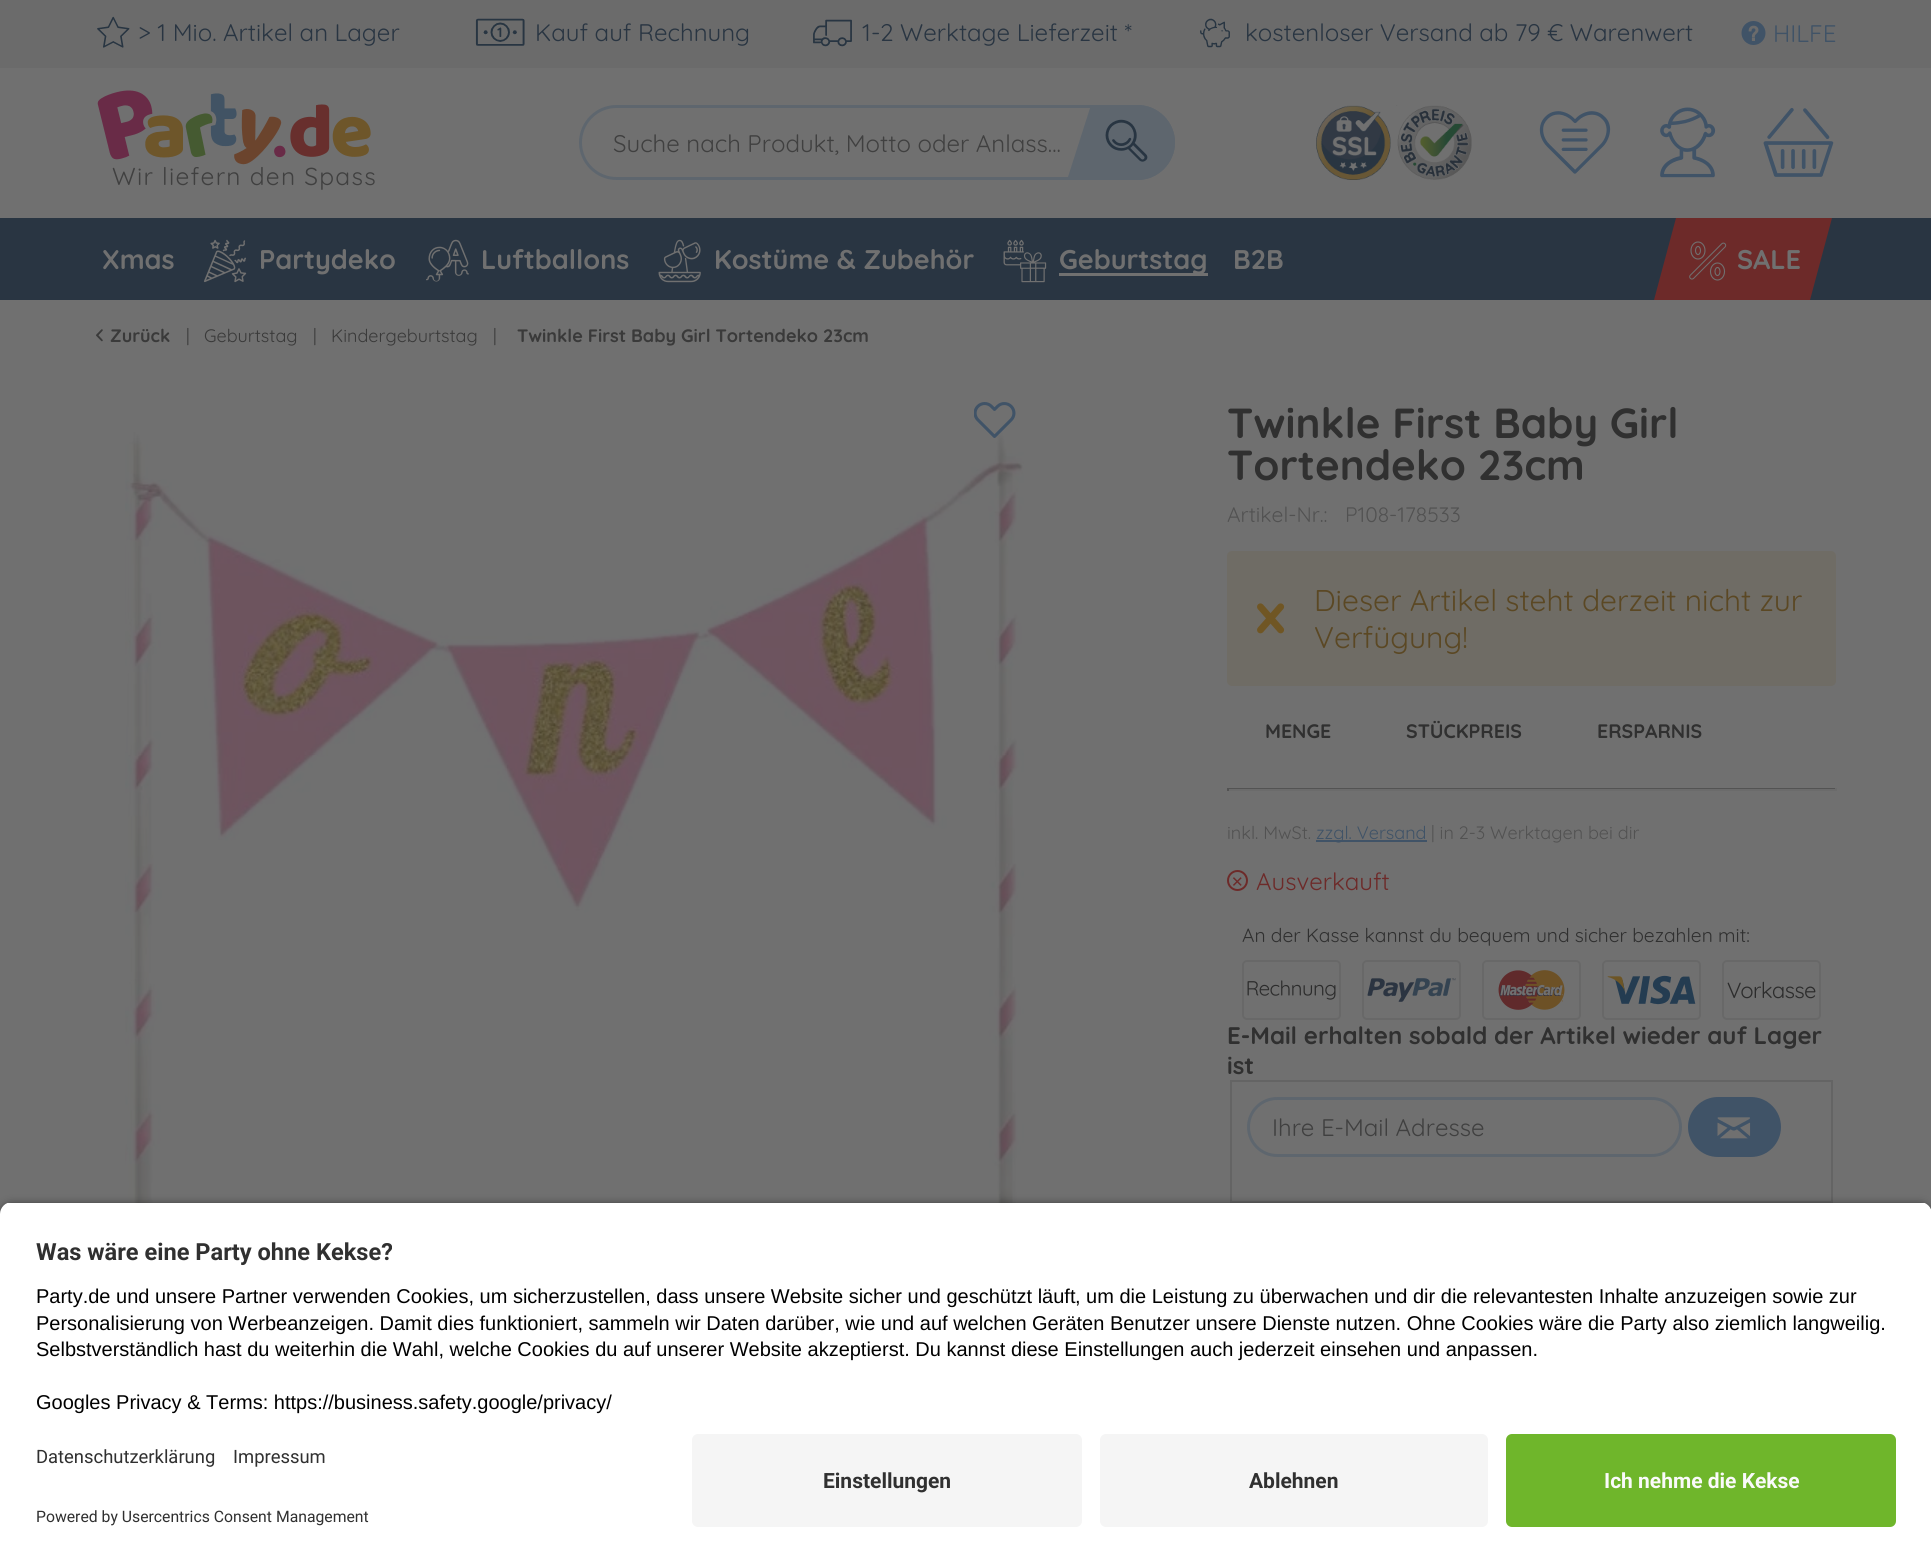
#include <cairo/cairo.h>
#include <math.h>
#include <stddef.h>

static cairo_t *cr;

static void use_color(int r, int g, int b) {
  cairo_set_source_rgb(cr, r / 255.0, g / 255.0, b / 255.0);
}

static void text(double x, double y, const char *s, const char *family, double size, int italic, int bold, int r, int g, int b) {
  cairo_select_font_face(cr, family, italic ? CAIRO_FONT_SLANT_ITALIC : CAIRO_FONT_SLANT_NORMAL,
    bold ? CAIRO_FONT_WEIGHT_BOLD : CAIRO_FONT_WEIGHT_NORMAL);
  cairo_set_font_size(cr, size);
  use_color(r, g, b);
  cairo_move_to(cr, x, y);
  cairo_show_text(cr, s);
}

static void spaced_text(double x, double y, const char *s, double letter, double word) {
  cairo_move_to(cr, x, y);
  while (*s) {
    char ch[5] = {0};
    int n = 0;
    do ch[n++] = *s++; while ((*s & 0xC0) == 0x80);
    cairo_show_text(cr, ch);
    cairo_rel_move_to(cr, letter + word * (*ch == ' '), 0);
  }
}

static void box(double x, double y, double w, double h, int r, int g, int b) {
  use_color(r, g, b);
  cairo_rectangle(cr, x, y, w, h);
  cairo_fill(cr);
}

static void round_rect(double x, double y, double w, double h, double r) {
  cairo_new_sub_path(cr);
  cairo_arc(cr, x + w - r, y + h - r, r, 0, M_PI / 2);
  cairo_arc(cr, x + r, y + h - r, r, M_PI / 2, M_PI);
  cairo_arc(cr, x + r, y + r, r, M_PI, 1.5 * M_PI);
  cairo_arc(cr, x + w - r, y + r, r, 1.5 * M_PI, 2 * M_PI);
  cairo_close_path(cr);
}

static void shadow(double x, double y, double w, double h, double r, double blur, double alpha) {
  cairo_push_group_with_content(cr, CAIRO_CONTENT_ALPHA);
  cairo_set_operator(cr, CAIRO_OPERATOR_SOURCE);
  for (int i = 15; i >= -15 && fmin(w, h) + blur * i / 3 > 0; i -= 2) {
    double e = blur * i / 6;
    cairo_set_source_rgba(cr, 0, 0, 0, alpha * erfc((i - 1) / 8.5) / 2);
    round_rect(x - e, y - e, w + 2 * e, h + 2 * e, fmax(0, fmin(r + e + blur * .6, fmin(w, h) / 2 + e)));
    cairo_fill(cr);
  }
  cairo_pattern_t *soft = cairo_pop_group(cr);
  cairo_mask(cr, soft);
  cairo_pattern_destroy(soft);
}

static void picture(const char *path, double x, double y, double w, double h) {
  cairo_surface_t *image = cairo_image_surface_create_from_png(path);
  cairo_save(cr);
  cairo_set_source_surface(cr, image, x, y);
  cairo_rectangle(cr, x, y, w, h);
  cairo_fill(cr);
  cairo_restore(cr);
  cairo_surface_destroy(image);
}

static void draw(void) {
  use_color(112, 112, 112);
  cairo_paint(cr);
  box(0, 0, 1931, 68, 107, 107, 107);
  picture("img_01.png", 97, 16, 33, 32);
  picture("img_02.png", 475, 18, 50, 28);
  picture("img_03.png", 813, 19, 39, 28);
  picture("img_04.png", 1200, 18, 30, 30);
  picture("img_05.png", 1741, 21, 25, 24);
  round_rect(580.5, 106.5, 593, 72, 36);
  use_color(94, 102, 110);
  cairo_set_line_width(cr, 3);
  cairo_stroke(cr);
  cairo_new_path(cr);
  cairo_move_to(cr, 1122.5, 105);
  cairo_line_to(cr, 1137.5, 105);
  cairo_curve_to(cr, 1158, 105, 1175, 122, 1175, 142.5);
  cairo_curve_to(cr, 1175, 163, 1158, 180, 1137.5, 180);
  cairo_line_to(cr, 1085, 180);
  cairo_line_to(cr, 1085, 142.5);
  cairo_curve_to(cr, 1085, 122, 1102, 105, 1122.5, 105);
  cairo_close_path(cr);
  cairo_fill(cr);
  cairo_new_path(cr);
  cairo_move_to(cr, 1091, 105);
  cairo_line_to(cr, 1121, 105);
  cairo_line_to(cr, 1097, 180);
  cairo_line_to(cr, 1067, 180);
  cairo_close_path(cr);
  cairo_fill(cr);
  picture("img_06.png", 1105, 119, 43, 43);
  picture("img_07.png", 1316, 105, 75, 75);
  picture("img_08.png", 1396, 105, 76, 75);
  picture("img_09.png", 1539, 111, 72, 63);
  picture("img_10.png", 1660, 107, 56, 71);
  picture("img_11.png", 1763, 107, 71, 70);
  picture("img_12.png", 97, 90, 274, 75);
  box(0, 218, 1931, 82, 41, 53, 66);
  picture("img_13.png", 203, 239, 44, 44);
  picture("img_14.png", 426, 239, 43, 43);
  picture("img_15.png", 658, 239, 43, 44);
  picture("img_16.png", 1003, 239, 44, 44);
  box(1059, 273, 149, 3, 112, 112, 112);
  use_color(109, 42, 41);
  cairo_new_path(cr);
  cairo_move_to(cr, 1676, 218);
  cairo_line_to(cr, 1832, 218);
  cairo_line_to(cr, 1810, 300);
  cairo_line_to(cr, 1654, 300);
  cairo_close_path(cr);
  cairo_fill(cr);
  picture("img_17.png", 1689, 241, 38, 40);
  picture("img_18.png", 96, 329, 7, 13);
  picture("img_20.png", 125, 432, 899, 771);
  picture("img_19.png", 974, 402, 42, 36);
  use_color(111, 108, 101);
  round_rect(1227, 551, 609, 135, 5);
  cairo_fill(cr);
  picture("img_21.png", 1257, 603, 28, 31);
  box(1227, 788, 609, 1, 83, 83, 83);
  box(1835, 788, 2, 3, 107, 107, 107);
  box(1227, 789, 609, 2, 107, 107, 107);
  box(1227, 788, 2, 3, 83, 83, 83);
  box(1316, 840, 111, 2, 64, 83, 103);
  cairo_arc(cr, 1237.5, 880.5, 9.5, 0, 2 * M_PI);
  use_color(109, 42, 41);
  cairo_set_line_width(cr, 2);
  cairo_stroke(cr);
  round_rect(1243, 961, 97, 58, 4);
  use_color(104, 104, 104);
  cairo_stroke(cr);
  picture("img_22.png", 1247, 980, 89, 20);
  round_rect(1363, 961, 97, 58, 4);
  cairo_stroke(cr);
  picture("img_23.png", 1367, 978, 89, 24);
  round_rect(1483, 961, 97, 58, 4);
  cairo_stroke(cr);
  picture("img_24.png", 1498, 970, 67, 40);
  round_rect(1603, 961, 97, 58, 4);
  cairo_stroke(cr);
  picture("img_25.png", 1607, 975, 89, 30);
  round_rect(1723, 961, 97, 58, 4);
  cairo_stroke(cr);
  picture("img_26.png", 1727, 981, 89, 18);
  cairo_rectangle(cr, 1231, 1081, 601, 121);
  use_color(100, 100, 100);
  cairo_stroke(cr);
  round_rect(1248.5, 1098.5, 432, 57, 28.5);
  use_color(94, 102, 110);
  cairo_set_line_width(cr, 3);
  cairo_stroke(cr);
  use_color(64, 83, 103);
  round_rect(1688, 1097, 93, 60, 30);
  cairo_fill(cr);
  picture("img_27.png", 1717, 1117, 34, 22);
  use_color(0, 0, 0);
  shadow(0, 1206, 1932, 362, 12, 5, 0.8);
  cairo_save(cr);
  cairo_new_path(cr);
  cairo_move_to(cr, 12, 1202);
  cairo_line_to(cr, 1920, 1202);
  cairo_curve_to(cr, 1926.5, 1202, 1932, 1207.5, 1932, 1214);
  cairo_line_to(cr, 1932, 1422);
  cairo_line_to(cr, 0, 1422);
  cairo_line_to(cr, 0, 1214);
  cairo_curve_to(cr, 0, 1207.5, 5.5, 1202, 12, 1202);
  cairo_close_path(cr);
  cairo_clip(cr);
  box(0, 1203, 1931, 219, 255, 255, 255);
  cairo_restore(cr);
  box(0, 1422, 1931, 140, 255, 255, 255);
  use_color(245, 245, 245);
  round_rect(692, 1434, 390, 93, 6);
  cairo_fill(cr);
  round_rect(1100, 1434, 388, 93, 6);
  cairo_fill(cr);
  use_color(111, 182, 43);
  round_rect(1506, 1434, 390, 93, 6);
  cairo_fill(cr);
  text(138, 41, "> 1 Mio. Artikel an Lager", "Quicksand", 24, 0, 0, 41, 53, 66);
  text(535, 41, "Kauf auf Rechnung", "Quicksand", 24, 0, 0, 41, 53, 66);
  text(862, 41, "1-2 Werktage Lieferzeit *", "Quicksand", 24, 0, 0, 41, 53, 66);
  text(1245, 41, "kostenloser Versand ab 79 € Warenwert", "Quicksand", 24, 0, 0, 41, 53, 66);
  text(1773, 42, "HILFE", "Quicksand", 24, 0, 0, 64, 83, 103);
  text(613, 152, "Suche nach Produkt, Motto oder Anlass...", "Quicksand", 24, 0, 0, 64, 64, 64);
  cairo_set_font_size(cr, 24.5);
  spaced_text(112, 185, "Wir liefern den Spass", 1.25, 0);
  text(102, 269, "Xmas", "Quicksand", 27, 0, 1, 112, 112, 112);
  text(259, 269, "Partydeko", "Quicksand", 27, 0, 1, 112, 112, 112);
  text(481, 269, "Luftballons", "Quicksand", 27, 0, 1, 112, 112, 112);
  text(714, 269, "Kostüme & Zubehör", "Quicksand", 27, 0, 1, 112, 112, 112);
  text(1059, 269, "Geburtstag", "Quicksand", 27, 0, 1, 112, 112, 112);
  text(1233, 269, "B2B", "Quicksand", 27, 0, 1, 112, 112, 112);
  text(1737, 269, "SALE", "Quicksand", 27, 0, 1, 112, 112, 112);
  text(110, 342, "Zurück", "Quicksand", 18, 0, 1, 58, 58, 58);
  text(186, 342, "|", "Quicksand", 18, 0, 0, 58, 58, 58);
  text(204, 342, "Geburtstag", "Quicksand", 18, 0, 0, 58, 58, 58);
  text(313, 342, "|", "Quicksand", 18, 0, 0, 58, 58, 58);
  text(331, 342, "Kindergeburtstag", "Quicksand", 18, 0, 0, 58, 58, 58);
  text(493, 342, "|", "Quicksand", 18, 0, 0, 58, 58, 58);
  text(517, 342, "Twinkle First Baby Girl Tortendeko 23cm", "Quicksand", 18, 0, 1, 58, 58, 58);
  text(1227, 438, "Twinkle First Baby Girl", "Quicksand", 42, 0, 1, 48, 48, 48);
  text(1227, 480, "Tortendeko 23cm", "Quicksand", 42, 0, 1, 48, 48, 48);
  text(1227, 522, "Artikel-Nr.:", "Quicksand", 21, 0, 0, 82, 82, 82);
  text(1345, 522, "P108-178533", "Quicksand", 21, 0, 0, 82, 82, 82);
  text(1314, 611, "Dieser Artikel steht derzeit nicht zur", "Quicksand", 30, 0, 0, 91, 72, 36);
  text(1314, 648, "Verfügung!", "Quicksand", 30, 0, 0, 91, 72, 36);
  text(1265, 738, "MENGE", "Quicksand", 19.5, 0, 1, 48, 48, 48);
  text(1406, 738, "STÜCKPREIS", "Quicksand", 19.5, 0, 1, 48, 48, 48);
  text(1597, 738, "ERSPARNIS", "Quicksand", 19.5, 0, 1, 48, 48, 48);
  text(1227, 839, "inkl. MwSt.", "Quicksand", 18, 0, 0, 82, 82, 82);
  text(1316, 839, "zzgl. Versand", "Quicksand", 18, 0, 0, 64, 83, 103);
  text(1431, 839, "| in 2-3 Werktagen bei dir", "Quicksand", 18, 0, 0, 82, 82, 82);
  text(1231, 887, "✕", "DejaVu Sans", 15, 0, 0, 109, 42, 41);
  text(1256, 890, "Ausverkauft", "Quicksand", 24, 0, 0, 109, 42, 41);
  text(1242, 942, "An der Kasse kannst du bequem und sicher bezahlen mit:", "Quicksand", 19.2, 0, 0, 48, 48, 48);
  text(1227, 1044, "E-Mail erhalten sobald der Artikel wieder auf Lager", "Quicksand", 24, 0, 1, 48, 48, 48);
  text(1227, 1074, "ist", "Quicksand", 24, 0, 1, 48, 48, 48);
  text(1272, 1136, "Ihre E-Mail Adresse", "Quicksand", 24, 0, 0, 64, 64, 64);
  text(36, 1260, "Was wäre eine Party ohne Kekse?", "Roboto", 23.6, 0, 1, 48, 48, 48);
  text(36, 1303, "Party.de und unsere Partner verwenden Cookies, um sicherzustellen, dass unsere Website sicher und geschützt läuft", "Liberation Sans", 20, 0, 0, 0, 0, 0);
  text(1075, 1303, ", um die Leistung zu überwachen und dir die relevantesten Inhalte anzuzeigen sowie zur", "Liberation Sans", 20, 0, 0, 0, 0, 0);
  text(36, 1330, "Personalisierung von Werbeanzeigen. Damit dies funktioniert, sammeln wir Daten darüber, wie und auf welchen Geräten Benutzer unsere Dienste nutzen. Ohne Cookies wäre die Party also ziemlich langweilig.", "Liberation Sans", 20, 0, 0, 0, 0, 0);
  text(36, 1356, "Selbstverständlich hast du weiterhin die Wahl, welche Cookies du auf unserer Website akzeptierst. Du kannst diese Einstellungen auch jederzeit einsehen und anpassen.", "Liberation Sans", 20, 0, 0, 0, 0, 0);
  text(36, 1409, "Googles Privacy & Terms: https://business.safety.google/privacy/", "Liberation Sans", 20, 0, 0, 0, 0, 0);
  text(36, 1463, "Datenschutzerklärung", "Roboto", 18.4, 0, 0, 48, 48, 48);
  text(233, 1463, "Impressum", "Roboto", 18.4, 0, 0, 48, 48, 48);
  text(36, 1522, "Powered by Usercentrics Consent Management", "Roboto", 15.75, 0, 0, 48, 48, 48);
  text(823, 1488, "Einstellungen", "Roboto", 21, 0, 1, 48, 48, 48);
  text(1249, 1488, "Ablehnen", "Roboto", 21, 0, 1, 48, 48, 48);
  text(1604, 1488, "Ich nehme die Kekse", "Roboto", 21, 0, 1, 250, 250, 250);
}

int main(void) {
  cairo_surface_t *surface = cairo_image_surface_create(CAIRO_FORMAT_RGB24, 1931, 1562);
  cr = cairo_create(surface);
  cairo_font_options_t *options = cairo_font_options_create();
  cairo_font_options_set_hint_metrics(options, CAIRO_HINT_METRICS_OFF);
  cairo_font_options_set_hint_style(options, CAIRO_HINT_STYLE_NONE);
  cairo_set_font_options(cr, options);
  cairo_set_miter_limit(cr, 4);
  draw();
  cairo_surface_write_to_png(surface, "out.png");
  cairo_font_options_destroy(options);
  cairo_destroy(cr);
  cairo_surface_destroy(surface);
  return 0;
}
